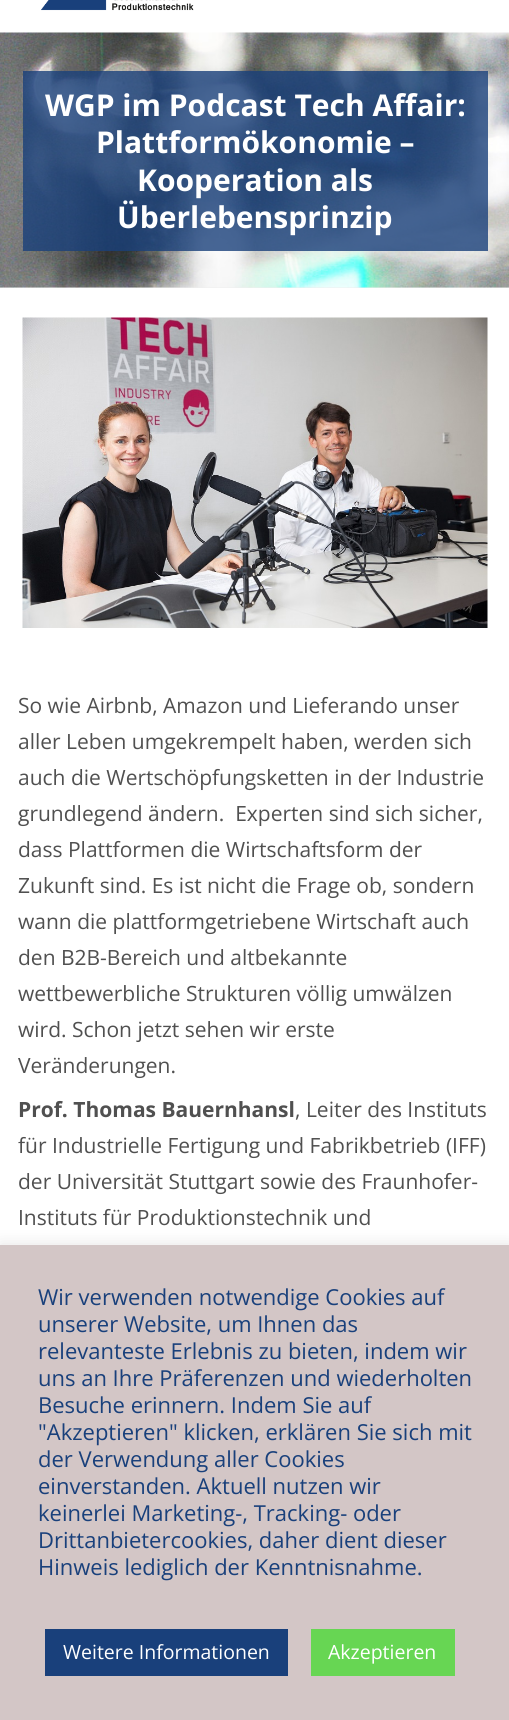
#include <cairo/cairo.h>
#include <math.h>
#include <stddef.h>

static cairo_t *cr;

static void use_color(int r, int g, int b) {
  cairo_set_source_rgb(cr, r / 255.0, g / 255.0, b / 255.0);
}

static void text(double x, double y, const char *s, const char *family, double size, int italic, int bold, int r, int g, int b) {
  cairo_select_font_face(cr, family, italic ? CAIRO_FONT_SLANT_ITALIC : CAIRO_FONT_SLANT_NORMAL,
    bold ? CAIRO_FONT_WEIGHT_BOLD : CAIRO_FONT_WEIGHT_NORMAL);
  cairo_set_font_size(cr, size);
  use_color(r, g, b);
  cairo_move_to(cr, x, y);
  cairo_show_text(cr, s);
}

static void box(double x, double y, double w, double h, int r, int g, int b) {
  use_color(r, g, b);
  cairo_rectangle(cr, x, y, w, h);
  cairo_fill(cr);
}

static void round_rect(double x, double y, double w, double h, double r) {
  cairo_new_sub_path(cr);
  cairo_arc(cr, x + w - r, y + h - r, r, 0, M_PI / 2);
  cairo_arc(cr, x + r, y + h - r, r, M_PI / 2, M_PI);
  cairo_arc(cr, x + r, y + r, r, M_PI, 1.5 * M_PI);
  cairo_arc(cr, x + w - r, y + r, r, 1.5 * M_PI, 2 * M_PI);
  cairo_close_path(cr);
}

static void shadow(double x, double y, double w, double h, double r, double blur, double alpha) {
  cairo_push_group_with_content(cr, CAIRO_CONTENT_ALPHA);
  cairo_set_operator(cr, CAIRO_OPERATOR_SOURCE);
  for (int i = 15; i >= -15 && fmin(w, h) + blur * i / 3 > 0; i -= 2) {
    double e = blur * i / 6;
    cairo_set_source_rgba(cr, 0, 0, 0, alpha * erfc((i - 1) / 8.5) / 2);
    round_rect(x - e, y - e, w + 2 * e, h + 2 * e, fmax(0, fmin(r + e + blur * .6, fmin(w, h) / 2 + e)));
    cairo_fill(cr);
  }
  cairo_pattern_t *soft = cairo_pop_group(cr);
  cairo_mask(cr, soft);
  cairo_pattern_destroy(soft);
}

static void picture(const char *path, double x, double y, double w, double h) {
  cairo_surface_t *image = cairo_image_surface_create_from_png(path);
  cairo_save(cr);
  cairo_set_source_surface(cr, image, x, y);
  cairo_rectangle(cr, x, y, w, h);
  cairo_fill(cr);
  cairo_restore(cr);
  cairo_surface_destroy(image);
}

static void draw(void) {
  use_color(255, 255, 255);
  cairo_paint(cr);
  picture("img_01.png", 41, 0, 153, 11);
  box(0, 287, 509, 1, 238, 238, 238);
  picture("img_02.png", 0, 32, 509, 256);
  cairo_set_source_rgba(cr, 0.098, 0.251, 0.482, 0.8);
  cairo_rectangle(cr, 23, 71, 465, 180);
  cairo_fill(cr);
  picture("img_03.png", 22, 317, 466, 311);
  use_color(172, 171, 171);
  shadow(0, 1244, 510, 475, 0, 7.5, 0.3);
  box(0, 1245, 509, 475, 211, 198, 198);
  box(45, 1629, 243, 47, 25, 64, 123);
  box(311, 1629, 144, 47, 103, 214, 83);
  text(45, 116, "WGP im Podcast Tech Affair:", "Open Sans", 30, 0, 1, 255, 255, 255);
  text(96, 153, "Plattformökonomie –", "Open Sans", 30, 0, 1, 255, 255, 255);
  text(137, 191, "Kooperation als", "Open Sans", 30, 0, 1, 255, 255, 255);
  text(117, 228, "Überlebensprinzip", "Open Sans", 30, 0, 1, 255, 255, 255);
  text(18, 713, "So wie Airbnb, Amazon und Lieferando unser", "Open Sans", 21, 0, 0, 80, 80, 80);
  text(18, 749, "aller Leben umgekrempelt haben, werden sich", "Open Sans", 21, 0, 0, 80, 80, 80);
  text(18, 785, "auch die Wertschöpfungsketten in der Industrie", "Open Sans", 21, 0, 0, 80, 80, 80);
  text(18, 821, "grundlegend ändern.  Experten sind sich sicher,", "Open Sans", 21, 0, 0, 80, 80, 80);
  text(18, 857, "dass Plattformen die Wirtschaftsform der", "Open Sans", 21, 0, 0, 80, 80, 80);
  text(18, 893, "Zukunft sind. Es ist nicht die Frage ob, sondern", "Open Sans", 21, 0, 0, 80, 80, 80);
  text(18, 929, "wann die plattformgetriebene Wirtschaft auch", "Open Sans", 21, 0, 0, 80, 80, 80);
  text(18, 965, "den B2B-Bereich und altbekannte", "Open Sans", 21, 0, 0, 80, 80, 80);
  text(18, 1001, "wettbewerbliche Strukturen völlig umwälzen", "Open Sans", 21, 0, 0, 80, 80, 80);
  text(18, 1037, "wird. Schon jetzt sehen wir erste", "Open Sans", 21, 0, 0, 80, 80, 80);
  text(18, 1073, "Veränderungen.", "Open Sans", 21, 0, 0, 80, 80, 80);
  text(18, 1117, "Prof. Thomas Bauernhansl", "Open Sans", 21, 0, 1, 80, 80, 80);
  text(295, 1117, ", Leiter des Instituts", "Open Sans", 21, 0, 0, 80, 80, 80);
  text(18, 1153, "für Industrielle Fertigung und Fabrikbetrieb (IFF)", "Open Sans", 21, 0, 0, 80, 80, 80);
  text(18, 1189, "der Universität Stuttgart sowie des Fraunhofer-", "Open Sans", 21, 0, 0, 80, 80, 80);
  text(18, 1225, "Instituts für Produktionstechnik und", "Open Sans", 21, 0, 0, 80, 80, 80);
  text(38, 1305, "Wir verwenden notwendige Cookies auf", "Open Sans", 22, 0, 0, 25, 64, 123);
  text(38, 1332, "unserer Website, um Ihnen das", "Open Sans", 22, 0, 0, 25, 64, 123);
  text(38, 1359, "relevanteste Erlebnis zu bieten, indem wir", "Open Sans", 22, 0, 0, 25, 64, 123);
  text(38, 1386, "uns an Ihre Präferenzen und wiederholten", "Open Sans", 22, 0, 0, 25, 64, 123);
  text(38, 1413, "Besuche erinnern. Indem Sie auf", "Open Sans", 22, 0, 0, 25, 64, 123);
  text(38, 1440, "\"Akzeptieren\" klicken, erklären Sie sich mit", "Open Sans", 22, 0, 0, 25, 64, 123);
  text(38, 1467, "der Verwendung aller Cookies", "Open Sans", 22, 0, 0, 25, 64, 123);
  text(38, 1494, "einverstanden. Aktuell nutzen wir", "Open Sans", 22, 0, 0, 25, 64, 123);
  text(38, 1521, "keinerlei Marketing-, Tracking- oder", "Open Sans", 22, 0, 0, 25, 64, 123);
  text(38, 1548, "Drittanbietercookies, daher dient dieser", "Open Sans", 22, 0, 0, 25, 64, 123);
  text(38, 1575, "Hinweis lediglich der Kenntnisnahme.", "Open Sans", 22, 0, 0, 25, 64, 123);
  text(63, 1659, "Weitere Informationen", "Open Sans", 19.5, 0, 0, 255, 255, 255);
  text(328, 1659, "Akzeptieren", "Open Sans", 19.5, 0, 0, 255, 255, 255);
}

int main(void) {
  cairo_surface_t *surface = cairo_image_surface_create(CAIRO_FORMAT_RGB24, 509, 1720);
  cr = cairo_create(surface);
  cairo_font_options_t *options = cairo_font_options_create();
  cairo_font_options_set_hint_metrics(options, CAIRO_HINT_METRICS_OFF);
  cairo_font_options_set_hint_style(options, CAIRO_HINT_STYLE_NONE);
  cairo_set_font_options(cr, options);
  cairo_set_miter_limit(cr, 4);
  draw();
  cairo_surface_write_to_png(surface, "out.png");
  cairo_font_options_destroy(options);
  cairo_destroy(cr);
  cairo_surface_destroy(surface);
  return 0;
}
